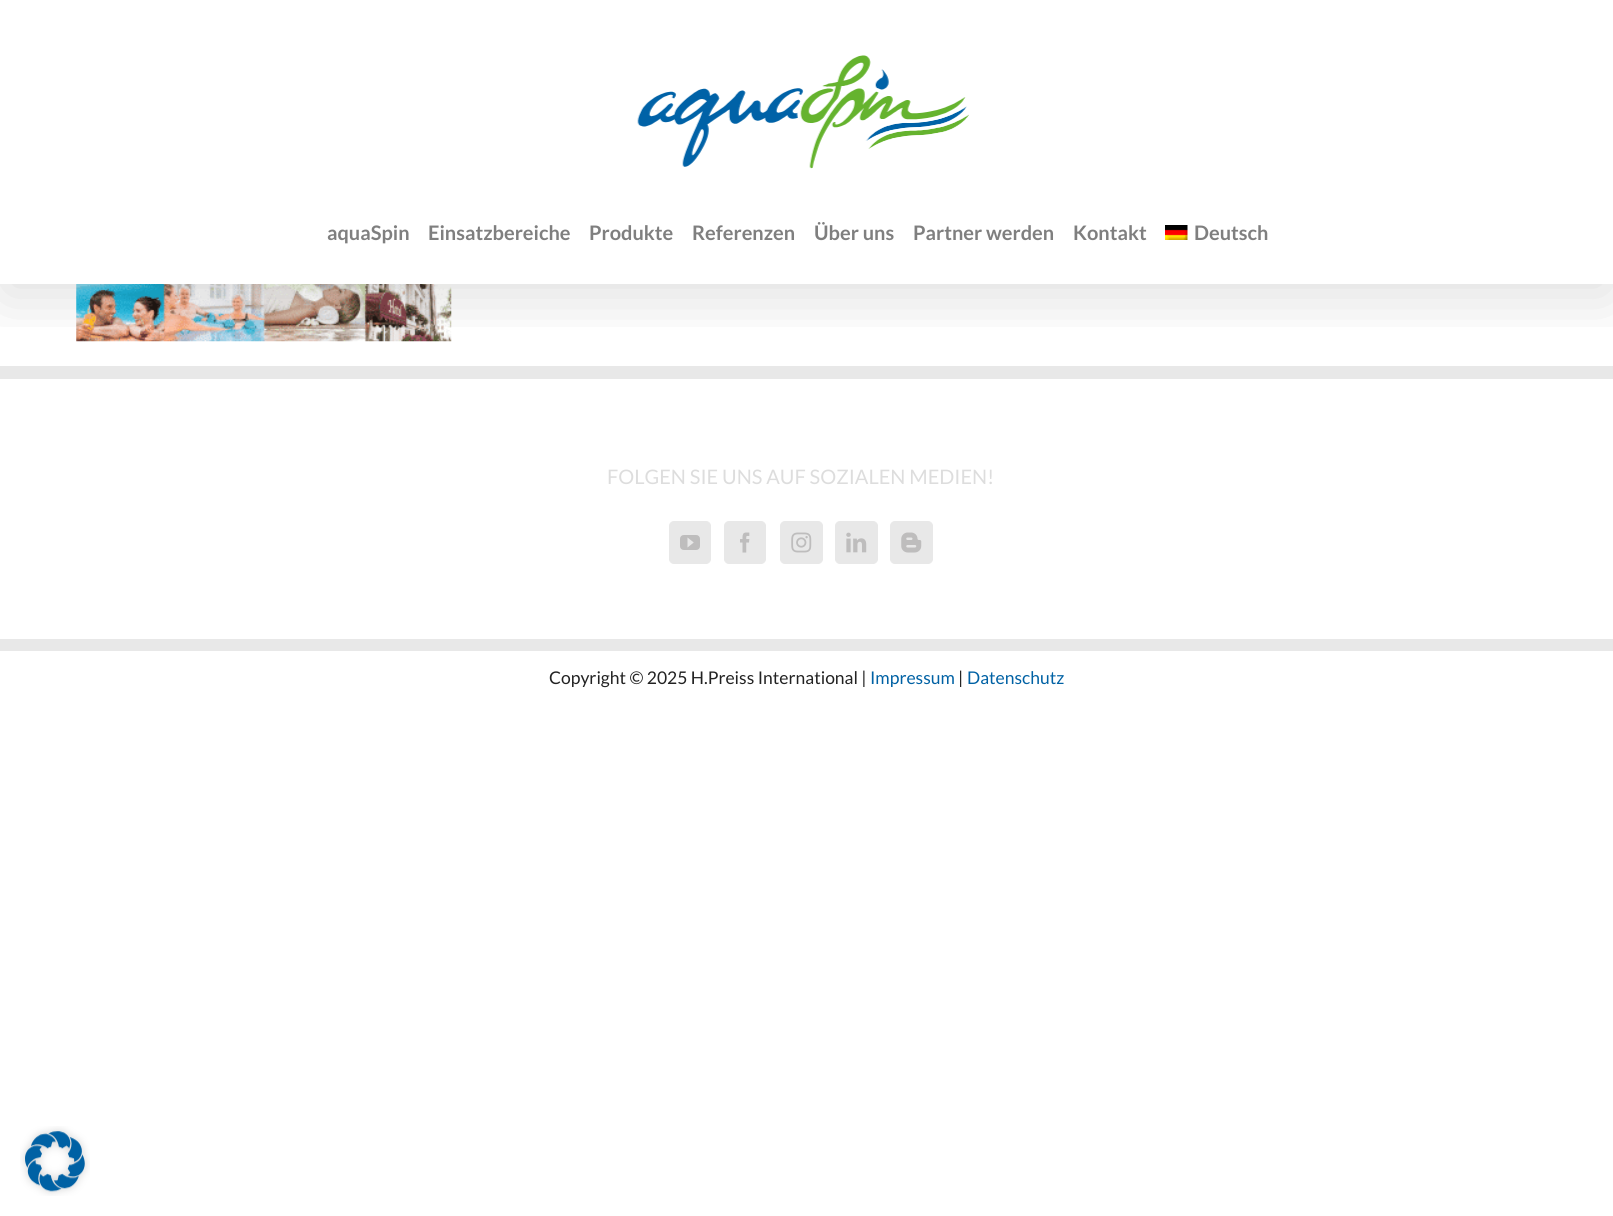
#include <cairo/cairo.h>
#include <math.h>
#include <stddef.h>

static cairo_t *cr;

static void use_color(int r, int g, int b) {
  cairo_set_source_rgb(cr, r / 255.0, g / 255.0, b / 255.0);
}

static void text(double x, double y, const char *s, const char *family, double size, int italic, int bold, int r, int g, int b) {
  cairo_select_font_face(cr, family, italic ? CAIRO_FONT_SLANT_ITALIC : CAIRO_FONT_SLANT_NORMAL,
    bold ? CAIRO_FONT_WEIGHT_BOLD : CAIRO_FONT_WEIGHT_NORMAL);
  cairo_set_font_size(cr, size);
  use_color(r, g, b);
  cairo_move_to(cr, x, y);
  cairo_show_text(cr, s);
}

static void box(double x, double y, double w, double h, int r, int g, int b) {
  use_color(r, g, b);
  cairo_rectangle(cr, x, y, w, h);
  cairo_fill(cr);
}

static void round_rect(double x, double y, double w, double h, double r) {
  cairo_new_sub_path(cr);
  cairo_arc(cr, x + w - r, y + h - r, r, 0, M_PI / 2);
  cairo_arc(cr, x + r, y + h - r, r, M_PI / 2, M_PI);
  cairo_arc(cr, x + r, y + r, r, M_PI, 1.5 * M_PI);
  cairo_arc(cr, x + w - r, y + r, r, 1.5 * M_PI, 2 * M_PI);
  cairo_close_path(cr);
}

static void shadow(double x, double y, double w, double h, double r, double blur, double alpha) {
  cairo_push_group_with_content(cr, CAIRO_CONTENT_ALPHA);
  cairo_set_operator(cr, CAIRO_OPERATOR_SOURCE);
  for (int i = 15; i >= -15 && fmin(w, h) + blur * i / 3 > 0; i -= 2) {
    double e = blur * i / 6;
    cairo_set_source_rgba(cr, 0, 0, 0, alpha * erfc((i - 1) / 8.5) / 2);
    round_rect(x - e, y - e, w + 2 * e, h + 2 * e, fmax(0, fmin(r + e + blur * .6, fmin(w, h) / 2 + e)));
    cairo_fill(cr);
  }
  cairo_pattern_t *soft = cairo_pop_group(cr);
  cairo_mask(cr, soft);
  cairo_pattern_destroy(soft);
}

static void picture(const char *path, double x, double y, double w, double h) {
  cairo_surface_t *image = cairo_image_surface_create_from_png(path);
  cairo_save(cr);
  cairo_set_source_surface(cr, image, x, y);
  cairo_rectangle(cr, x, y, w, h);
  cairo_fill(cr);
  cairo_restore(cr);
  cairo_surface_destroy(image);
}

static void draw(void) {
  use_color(255, 255, 255);
  cairo_paint(cr);
  picture("img_03.png", 76, 284, 376, 58);
  box(0, 366, 1613, 13, 232, 232, 232);
  cairo_save(cr);
  cairo_rectangle(cr, 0, 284, 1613, 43);
  cairo_clip(cr);
  use_color(0, 0, 0);
  shadow(3, 15, 1608, 279, 0, 31, 0.14);
  cairo_restore(cr);
  picture("img_01.png", 637, 55, 332, 114);
  box(0, 283, 1613, 1, 255, 255, 255);
  picture("img_02.png", 1165, 225, 23, 15);
  use_color(232, 232, 232);
  round_rect(669.5, 521.5, 41, 42, 4.5);
  cairo_fill_preserve(cr);
  cairo_set_line_width(cr, 1);
  cairo_stroke(cr);
  picture("img_04.png", 680, 535, 20, 15);
  round_rect(724.5, 521.5, 41, 42, 4.5);
  cairo_fill_preserve(cr);
  cairo_stroke(cr);
  picture("img_05.png", 740, 532, 10, 21);
  round_rect(780.5, 521.5, 42, 42, 4.5);
  cairo_fill_preserve(cr);
  cairo_stroke(cr);
  picture("img_06.png", 791, 532, 21, 21);
  round_rect(835.5, 521.5, 42, 42, 4.5);
  cairo_fill_preserve(cr);
  cairo_stroke(cr);
  picture("img_07.png", 846, 532, 21, 21);
  round_rect(890.5, 521.5, 42, 42, 4.5);
  cairo_fill_preserve(cr);
  cairo_stroke(cr);
  picture("img_08.png", 901, 532, 21, 21);
  box(0, 639, 1613, 12, 232, 232, 232);
  picture("img_09.png", 20, 1126, 70, 70);
  text(327, 240, "aquaSpin", "Lato", 20, 0, 1, 127, 127, 127);
  text(428, 240, "Einsatzbereiche", "Lato", 20, 0, 1, 127, 127, 127);
  text(589, 240, "Produkte", "Lato", 20, 0, 1, 127, 127, 127);
  text(692, 240, "Referenzen", "Lato", 20, 0, 1, 127, 127, 127);
  text(814, 240, "Über uns", "Lato", 20, 0, 1, 127, 127, 127);
  text(913, 240, "Partner werden", "Lato", 20, 0, 1, 127, 127, 127);
  text(1073, 240, "Kontakt", "Lato", 20, 0, 1, 127, 127, 127);
  text(1194, 240, "Deutsch", "Lato", 20, 0, 1, 127, 127, 127);
  text(607, 484, "FOLGEN SIE UNS AUF SOZIALEN MEDIEN!", "Lato", 20, 0, 0, 221, 221, 221);
  text(549, 684, "Copyright © 2025 H.Preiss International |", "Lato", 17.5, 0, 0, 34, 34, 34);
  text(870, 684, "Impressum", "Lato", 17.5, 0, 0, 0, 97, 164);
  text(958, 684, "|", "Lato", 17.5, 0, 0, 34, 34, 34);
  text(967, 684, "Datenschutz", "Lato", 17.5, 0, 0, 0, 97, 164);
}

int main(void) {
  cairo_surface_t *surface = cairo_image_surface_create(CAIRO_FORMAT_RGB24, 1613, 1216);
  cr = cairo_create(surface);
  cairo_font_options_t *options = cairo_font_options_create();
  cairo_font_options_set_hint_metrics(options, CAIRO_HINT_METRICS_OFF);
  cairo_font_options_set_hint_style(options, CAIRO_HINT_STYLE_NONE);
  cairo_set_font_options(cr, options);
  cairo_set_miter_limit(cr, 4);
  draw();
  cairo_surface_write_to_png(surface, "out.png");
  cairo_font_options_destroy(options);
  cairo_destroy(cr);
  cairo_surface_destroy(surface);
  return 0;
}
